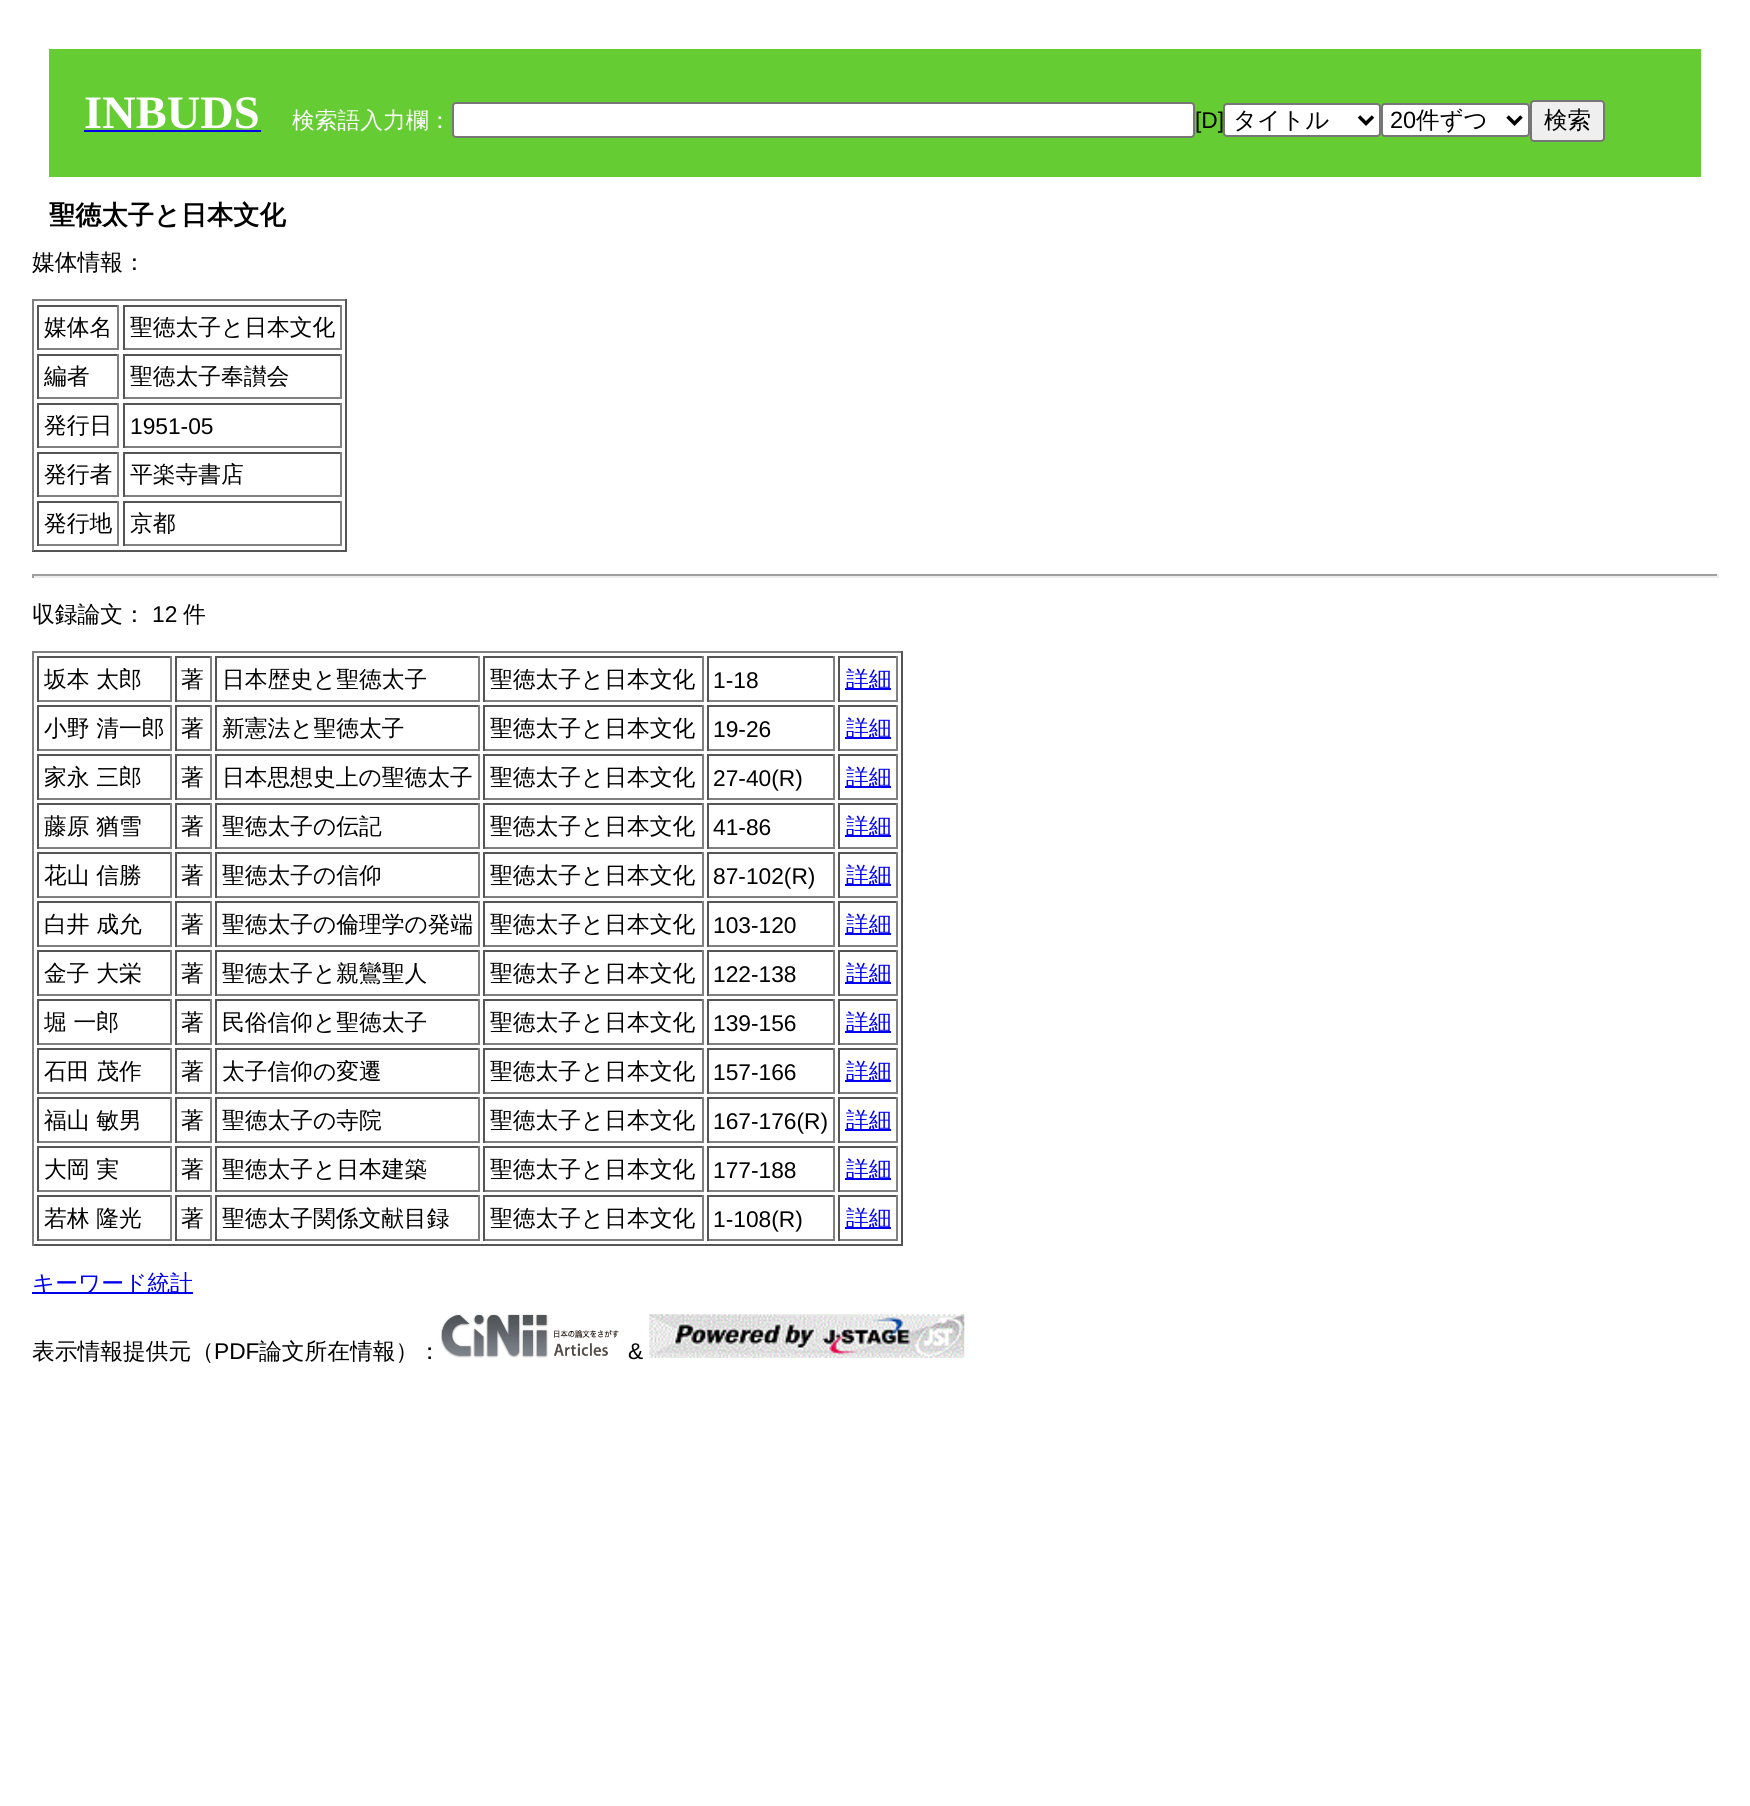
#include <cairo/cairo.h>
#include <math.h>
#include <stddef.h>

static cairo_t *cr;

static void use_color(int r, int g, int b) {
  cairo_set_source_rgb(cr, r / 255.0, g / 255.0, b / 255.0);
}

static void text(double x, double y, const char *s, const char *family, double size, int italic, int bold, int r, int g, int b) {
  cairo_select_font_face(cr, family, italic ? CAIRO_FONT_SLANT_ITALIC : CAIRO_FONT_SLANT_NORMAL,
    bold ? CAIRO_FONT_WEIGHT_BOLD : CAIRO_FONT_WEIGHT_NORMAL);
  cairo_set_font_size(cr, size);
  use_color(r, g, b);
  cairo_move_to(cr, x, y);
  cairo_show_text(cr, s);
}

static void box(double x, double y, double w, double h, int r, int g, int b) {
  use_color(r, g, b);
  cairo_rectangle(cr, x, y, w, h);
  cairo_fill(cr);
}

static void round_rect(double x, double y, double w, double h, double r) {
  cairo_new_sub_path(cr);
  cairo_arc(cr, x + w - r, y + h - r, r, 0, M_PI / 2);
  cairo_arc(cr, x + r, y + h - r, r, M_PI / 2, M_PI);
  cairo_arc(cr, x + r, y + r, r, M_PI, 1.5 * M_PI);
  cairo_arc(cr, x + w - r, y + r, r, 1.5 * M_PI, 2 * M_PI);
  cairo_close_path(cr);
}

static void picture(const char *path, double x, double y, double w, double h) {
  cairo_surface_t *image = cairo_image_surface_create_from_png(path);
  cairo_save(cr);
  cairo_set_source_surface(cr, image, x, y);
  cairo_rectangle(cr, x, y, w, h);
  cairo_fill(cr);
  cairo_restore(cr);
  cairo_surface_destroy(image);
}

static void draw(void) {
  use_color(255, 255, 255);
  cairo_paint(cr);
  box(49, 49, 1652, 128, 102, 204, 51);
  box(84, 130, 177, 2, 0, 0, 238);
  use_color(255, 255, 255);
  round_rect(453, 103, 741, 34, 3);
  cairo_fill_preserve(cr);
  use_color(118, 118, 118);
  cairo_stroke(cr);
  use_color(255, 255, 255);
  round_rect(1224, 104, 156, 32, 3);
  cairo_fill_preserve(cr);
  use_color(118, 118, 118);
  cairo_stroke(cr);
  cairo_new_path(cr);
  cairo_move_to(cr, 1359, 116.5);
  cairo_line_to(cr, 1366, 123.5);
  cairo_line_to(cr, 1373, 116.5);
  use_color(0, 0, 0);
  cairo_set_line_width(cr, 3.5);
  cairo_stroke(cr);
  use_color(255, 255, 255);
  round_rect(1382, 104, 147, 32, 3);
  cairo_fill_preserve(cr);
  use_color(118, 118, 118);
  cairo_set_line_width(cr, 2);
  cairo_stroke(cr);
  cairo_new_path(cr);
  cairo_move_to(cr, 1507.5, 116.5);
  cairo_line_to(cr, 1514.5, 123.5);
  cairo_line_to(cr, 1521.5, 116.5);
  use_color(0, 0, 0);
  cairo_set_line_width(cr, 3.5);
  cairo_stroke(cr);
  use_color(239, 239, 239);
  round_rect(1531, 101, 73, 40, 3);
  cairo_fill_preserve(cr);
  use_color(118, 118, 118);
  cairo_set_line_width(cr, 2);
  cairo_stroke(cr);
  box(32, 299, 315, 2, 128, 128, 128);
  box(345, 299, 2, 252, 85, 85, 85);
  box(32, 550, 315, 2, 85, 85, 85);
  box(32, 299, 2, 252, 128, 128, 128);
  box(37, 305, 82, 2, 85, 85, 85);
  box(117, 305, 2, 45, 128, 128, 128);
  box(37, 348, 82, 2, 128, 128, 128);
  box(37, 305, 2, 45, 85, 85, 85);
  box(123, 305, 218, 2, 85, 85, 85);
  box(340, 305, 2, 45, 128, 128, 128);
  box(123, 348, 218, 2, 128, 128, 128);
  box(123, 305, 2, 45, 85, 85, 85);
  box(37, 354, 82, 2, 85, 85, 85);
  box(117, 354, 2, 45, 128, 128, 128);
  box(37, 397, 82, 2, 128, 128, 128);
  box(37, 354, 2, 45, 85, 85, 85);
  box(123, 354, 218, 2, 85, 85, 85);
  box(340, 354, 2, 45, 128, 128, 128);
  box(123, 397, 218, 2, 128, 128, 128);
  box(123, 354, 2, 45, 85, 85, 85);
  box(37, 403, 82, 2, 85, 85, 85);
  box(117, 403, 2, 45, 128, 128, 128);
  box(37, 446, 82, 2, 128, 128, 128);
  box(37, 403, 2, 45, 85, 85, 85);
  box(123, 403, 218, 2, 85, 85, 85);
  box(340, 403, 2, 45, 128, 128, 128);
  box(123, 446, 218, 2, 128, 128, 128);
  box(123, 403, 2, 45, 85, 85, 85);
  box(37, 452, 82, 2, 85, 85, 85);
  box(117, 452, 2, 45, 128, 128, 128);
  box(37, 495, 82, 2, 128, 128, 128);
  box(37, 452, 2, 45, 85, 85, 85);
  box(123, 452, 218, 2, 85, 85, 85);
  box(340, 452, 2, 45, 128, 128, 128);
  box(123, 495, 218, 2, 128, 128, 128);
  box(123, 452, 2, 45, 85, 85, 85);
  box(37, 501, 82, 2, 85, 85, 85);
  box(117, 501, 2, 45, 128, 128, 128);
  box(37, 544, 82, 2, 128, 128, 128);
  box(37, 501, 2, 45, 85, 85, 85);
  box(123, 501, 218, 2, 85, 85, 85);
  box(340, 501, 2, 45, 128, 128, 128);
  box(123, 544, 218, 2, 128, 128, 128);
  box(123, 501, 2, 45, 85, 85, 85);
  box(32, 574, 1687, 2, 159, 159, 159);
  box(1717, 574, 2, 4, 238, 238, 238);
  box(32, 576, 1687, 2, 238, 238, 238);
  box(32, 574, 2, 4, 159, 159, 159);
  box(32, 651, 871, 2, 128, 128, 128);
  box(901, 651, 2, 595, 85, 85, 85);
  box(32, 1244, 871, 2, 85, 85, 85);
  box(32, 651, 2, 595, 128, 128, 128);
  box(37, 656, 135, 2, 85, 85, 85);
  box(170, 656, 2, 46, 128, 128, 128);
  box(37, 700, 135, 2, 128, 128, 128);
  box(37, 656, 2, 46, 85, 85, 85);
  box(175, 656, 37, 2, 85, 85, 85);
  box(210, 656, 2, 46, 128, 128, 128);
  box(175, 700, 37, 2, 128, 128, 128);
  box(175, 656, 2, 46, 85, 85, 85);
  box(215, 656, 265, 2, 85, 85, 85);
  box(478, 656, 2, 46, 128, 128, 128);
  box(215, 700, 265, 2, 128, 128, 128);
  box(215, 656, 2, 46, 85, 85, 85);
  box(483, 656, 221, 2, 85, 85, 85);
  box(702, 656, 2, 46, 128, 128, 128);
  box(483, 700, 221, 2, 128, 128, 128);
  box(483, 656, 2, 46, 85, 85, 85);
  box(707, 656, 128, 2, 85, 85, 85);
  box(833, 656, 2, 46, 128, 128, 128);
  box(707, 700, 128, 2, 128, 128, 128);
  box(707, 656, 2, 46, 85, 85, 85);
  box(838, 656, 60, 2, 85, 85, 85);
  box(896, 656, 2, 46, 128, 128, 128);
  box(838, 700, 60, 2, 128, 128, 128);
  box(838, 656, 2, 46, 85, 85, 85);
  box(845, 688, 46, 2, 0, 0, 238);
  box(37, 705, 135, 2, 85, 85, 85);
  box(170, 705, 2, 46, 128, 128, 128);
  box(37, 749, 135, 2, 128, 128, 128);
  box(37, 705, 2, 46, 85, 85, 85);
  box(175, 705, 37, 2, 85, 85, 85);
  box(210, 705, 2, 46, 128, 128, 128);
  box(175, 749, 37, 2, 128, 128, 128);
  box(175, 705, 2, 46, 85, 85, 85);
  box(215, 705, 265, 2, 85, 85, 85);
  box(478, 705, 2, 46, 128, 128, 128);
  box(215, 749, 265, 2, 128, 128, 128);
  box(215, 705, 2, 46, 85, 85, 85);
  box(483, 705, 221, 2, 85, 85, 85);
  box(702, 705, 2, 46, 128, 128, 128);
  box(483, 749, 221, 2, 128, 128, 128);
  box(483, 705, 2, 46, 85, 85, 85);
  box(707, 705, 128, 2, 85, 85, 85);
  box(833, 705, 2, 46, 128, 128, 128);
  box(707, 749, 128, 2, 128, 128, 128);
  box(707, 705, 2, 46, 85, 85, 85);
  box(838, 705, 60, 2, 85, 85, 85);
  box(896, 705, 2, 46, 128, 128, 128);
  box(838, 749, 60, 2, 128, 128, 128);
  box(838, 705, 2, 46, 85, 85, 85);
  box(845, 737, 46, 2, 0, 0, 238);
  box(37, 754, 135, 2, 85, 85, 85);
  box(170, 754, 2, 46, 128, 128, 128);
  box(37, 798, 135, 2, 128, 128, 128);
  box(37, 754, 2, 46, 85, 85, 85);
  box(175, 754, 37, 2, 85, 85, 85);
  box(210, 754, 2, 46, 128, 128, 128);
  box(175, 798, 37, 2, 128, 128, 128);
  box(175, 754, 2, 46, 85, 85, 85);
  box(215, 754, 265, 2, 85, 85, 85);
  box(478, 754, 2, 46, 128, 128, 128);
  box(215, 798, 265, 2, 128, 128, 128);
  box(215, 754, 2, 46, 85, 85, 85);
  box(483, 754, 221, 2, 85, 85, 85);
  box(702, 754, 2, 46, 128, 128, 128);
  box(483, 798, 221, 2, 128, 128, 128);
  box(483, 754, 2, 46, 85, 85, 85);
  box(707, 754, 128, 2, 85, 85, 85);
  box(833, 754, 2, 46, 128, 128, 128);
  box(707, 798, 128, 2, 128, 128, 128);
  box(707, 754, 2, 46, 85, 85, 85);
  box(838, 754, 60, 2, 85, 85, 85);
  box(896, 754, 2, 46, 128, 128, 128);
  box(838, 798, 60, 2, 128, 128, 128);
  box(838, 754, 2, 46, 85, 85, 85);
  box(845, 786, 46, 2, 0, 0, 238);
  box(37, 803, 135, 2, 85, 85, 85);
  box(170, 803, 2, 46, 128, 128, 128);
  box(37, 847, 135, 2, 128, 128, 128);
  box(37, 803, 2, 46, 85, 85, 85);
  box(175, 803, 37, 2, 85, 85, 85);
  box(210, 803, 2, 46, 128, 128, 128);
  box(175, 847, 37, 2, 128, 128, 128);
  box(175, 803, 2, 46, 85, 85, 85);
  box(215, 803, 265, 2, 85, 85, 85);
  box(478, 803, 2, 46, 128, 128, 128);
  box(215, 847, 265, 2, 128, 128, 128);
  box(215, 803, 2, 46, 85, 85, 85);
  box(483, 803, 221, 2, 85, 85, 85);
  box(702, 803, 2, 46, 128, 128, 128);
  box(483, 847, 221, 2, 128, 128, 128);
  box(483, 803, 2, 46, 85, 85, 85);
  box(707, 803, 128, 2, 85, 85, 85);
  box(833, 803, 2, 46, 128, 128, 128);
  box(707, 847, 128, 2, 128, 128, 128);
  box(707, 803, 2, 46, 85, 85, 85);
  box(838, 803, 60, 2, 85, 85, 85);
  box(896, 803, 2, 46, 128, 128, 128);
  box(838, 847, 60, 2, 128, 128, 128);
  box(838, 803, 2, 46, 85, 85, 85);
  box(845, 835, 46, 2, 0, 0, 238);
  box(37, 852, 135, 2, 85, 85, 85);
  box(170, 852, 2, 46, 128, 128, 128);
  box(37, 896, 135, 2, 128, 128, 128);
  box(37, 852, 2, 46, 85, 85, 85);
  box(175, 852, 37, 2, 85, 85, 85);
  box(210, 852, 2, 46, 128, 128, 128);
  box(175, 896, 37, 2, 128, 128, 128);
  box(175, 852, 2, 46, 85, 85, 85);
  box(215, 852, 265, 2, 85, 85, 85);
  box(478, 852, 2, 46, 128, 128, 128);
  box(215, 896, 265, 2, 128, 128, 128);
  box(215, 852, 2, 46, 85, 85, 85);
  box(483, 852, 221, 2, 85, 85, 85);
  box(702, 852, 2, 46, 128, 128, 128);
  box(483, 896, 221, 2, 128, 128, 128);
  box(483, 852, 2, 46, 85, 85, 85);
  box(707, 852, 128, 2, 85, 85, 85);
  box(833, 852, 2, 46, 128, 128, 128);
  box(707, 896, 128, 2, 128, 128, 128);
  box(707, 852, 2, 46, 85, 85, 85);
  box(838, 852, 60, 2, 85, 85, 85);
  box(896, 852, 2, 46, 128, 128, 128);
  box(838, 896, 60, 2, 128, 128, 128);
  box(838, 852, 2, 46, 85, 85, 85);
  box(845, 884, 46, 2, 0, 0, 238);
  box(37, 901, 135, 2, 85, 85, 85);
  box(170, 901, 2, 46, 128, 128, 128);
  box(37, 945, 135, 2, 128, 128, 128);
  box(37, 901, 2, 46, 85, 85, 85);
  box(175, 901, 37, 2, 85, 85, 85);
  box(210, 901, 2, 46, 128, 128, 128);
  box(175, 945, 37, 2, 128, 128, 128);
  box(175, 901, 2, 46, 85, 85, 85);
  box(215, 901, 265, 2, 85, 85, 85);
  box(478, 901, 2, 46, 128, 128, 128);
  box(215, 945, 265, 2, 128, 128, 128);
  box(215, 901, 2, 46, 85, 85, 85);
  box(483, 901, 221, 2, 85, 85, 85);
  box(702, 901, 2, 46, 128, 128, 128);
  box(483, 945, 221, 2, 128, 128, 128);
  box(483, 901, 2, 46, 85, 85, 85);
  box(707, 901, 128, 2, 85, 85, 85);
  box(833, 901, 2, 46, 128, 128, 128);
  box(707, 945, 128, 2, 128, 128, 128);
  box(707, 901, 2, 46, 85, 85, 85);
  box(838, 901, 60, 2, 85, 85, 85);
  box(896, 901, 2, 46, 128, 128, 128);
  box(838, 945, 60, 2, 128, 128, 128);
  box(838, 901, 2, 46, 85, 85, 85);
  box(845, 933, 46, 2, 0, 0, 238);
  box(37, 950, 135, 2, 85, 85, 85);
  box(170, 950, 2, 46, 128, 128, 128);
  box(37, 994, 135, 2, 128, 128, 128);
  box(37, 950, 2, 46, 85, 85, 85);
  box(175, 950, 37, 2, 85, 85, 85);
  box(210, 950, 2, 46, 128, 128, 128);
  box(175, 994, 37, 2, 128, 128, 128);
  box(175, 950, 2, 46, 85, 85, 85);
  box(215, 950, 265, 2, 85, 85, 85);
  box(478, 950, 2, 46, 128, 128, 128);
  box(215, 994, 265, 2, 128, 128, 128);
  box(215, 950, 2, 46, 85, 85, 85);
  box(483, 950, 221, 2, 85, 85, 85);
  box(702, 950, 2, 46, 128, 128, 128);
  box(483, 994, 221, 2, 128, 128, 128);
  box(483, 950, 2, 46, 85, 85, 85);
  box(707, 950, 128, 2, 85, 85, 85);
  box(833, 950, 2, 46, 128, 128, 128);
  box(707, 994, 128, 2, 128, 128, 128);
  box(707, 950, 2, 46, 85, 85, 85);
  box(838, 950, 60, 2, 85, 85, 85);
  box(896, 950, 2, 46, 128, 128, 128);
  box(838, 994, 60, 2, 128, 128, 128);
  box(838, 950, 2, 46, 85, 85, 85);
  box(845, 982, 46, 2, 0, 0, 238);
  box(37, 999, 135, 2, 85, 85, 85);
  box(170, 999, 2, 46, 128, 128, 128);
  box(37, 1043, 135, 2, 128, 128, 128);
  box(37, 999, 2, 46, 85, 85, 85);
  box(175, 999, 37, 2, 85, 85, 85);
  box(210, 999, 2, 46, 128, 128, 128);
  box(175, 1043, 37, 2, 128, 128, 128);
  box(175, 999, 2, 46, 85, 85, 85);
  box(215, 999, 265, 2, 85, 85, 85);
  box(478, 999, 2, 46, 128, 128, 128);
  box(215, 1043, 265, 2, 128, 128, 128);
  box(215, 999, 2, 46, 85, 85, 85);
  box(483, 999, 221, 2, 85, 85, 85);
  box(702, 999, 2, 46, 128, 128, 128);
  box(483, 1043, 221, 2, 128, 128, 128);
  box(483, 999, 2, 46, 85, 85, 85);
  box(707, 999, 128, 2, 85, 85, 85);
  box(833, 999, 2, 46, 128, 128, 128);
  box(707, 1043, 128, 2, 128, 128, 128);
  box(707, 999, 2, 46, 85, 85, 85);
  box(838, 999, 60, 2, 85, 85, 85);
  box(896, 999, 2, 46, 128, 128, 128);
  box(838, 1043, 60, 2, 128, 128, 128);
  box(838, 999, 2, 46, 85, 85, 85);
  box(845, 1031, 46, 2, 0, 0, 238);
  box(37, 1048, 135, 2, 85, 85, 85);
  box(170, 1048, 2, 46, 128, 128, 128);
  box(37, 1092, 135, 2, 128, 128, 128);
  box(37, 1048, 2, 46, 85, 85, 85);
  box(175, 1048, 37, 2, 85, 85, 85);
  box(210, 1048, 2, 46, 128, 128, 128);
  box(175, 1092, 37, 2, 128, 128, 128);
  box(175, 1048, 2, 46, 85, 85, 85);
  box(215, 1048, 265, 2, 85, 85, 85);
  box(478, 1048, 2, 46, 128, 128, 128);
  box(215, 1092, 265, 2, 128, 128, 128);
  box(215, 1048, 2, 46, 85, 85, 85);
  box(483, 1048, 221, 2, 85, 85, 85);
  box(702, 1048, 2, 46, 128, 128, 128);
  box(483, 1092, 221, 2, 128, 128, 128);
  box(483, 1048, 2, 46, 85, 85, 85);
  box(707, 1048, 128, 2, 85, 85, 85);
  box(833, 1048, 2, 46, 128, 128, 128);
  box(707, 1092, 128, 2, 128, 128, 128);
  box(707, 1048, 2, 46, 85, 85, 85);
  box(838, 1048, 60, 2, 85, 85, 85);
  box(896, 1048, 2, 46, 128, 128, 128);
  box(838, 1092, 60, 2, 128, 128, 128);
  box(838, 1048, 2, 46, 85, 85, 85);
  box(845, 1080, 46, 2, 0, 0, 238);
  box(37, 1097, 135, 2, 85, 85, 85);
  box(170, 1097, 2, 46, 128, 128, 128);
  box(37, 1141, 135, 2, 128, 128, 128);
  box(37, 1097, 2, 46, 85, 85, 85);
  box(175, 1097, 37, 2, 85, 85, 85);
  box(210, 1097, 2, 46, 128, 128, 128);
  box(175, 1141, 37, 2, 128, 128, 128);
  box(175, 1097, 2, 46, 85, 85, 85);
  box(215, 1097, 265, 2, 85, 85, 85);
  box(478, 1097, 2, 46, 128, 128, 128);
  box(215, 1141, 265, 2, 128, 128, 128);
  box(215, 1097, 2, 46, 85, 85, 85);
  box(483, 1097, 221, 2, 85, 85, 85);
  box(702, 1097, 2, 46, 128, 128, 128);
  box(483, 1141, 221, 2, 128, 128, 128);
  box(483, 1097, 2, 46, 85, 85, 85);
  box(707, 1097, 128, 2, 85, 85, 85);
  box(833, 1097, 2, 46, 128, 128, 128);
  box(707, 1141, 128, 2, 128, 128, 128);
  box(707, 1097, 2, 46, 85, 85, 85);
  box(838, 1097, 60, 2, 85, 85, 85);
  box(896, 1097, 2, 46, 128, 128, 128);
  box(838, 1141, 60, 2, 128, 128, 128);
  box(838, 1097, 2, 46, 85, 85, 85);
  box(845, 1129, 46, 2, 0, 0, 238);
  box(37, 1146, 135, 2, 85, 85, 85);
  box(170, 1146, 2, 46, 128, 128, 128);
  box(37, 1190, 135, 2, 128, 128, 128);
  box(37, 1146, 2, 46, 85, 85, 85);
  box(175, 1146, 37, 2, 85, 85, 85);
  box(210, 1146, 2, 46, 128, 128, 128);
  box(175, 1190, 37, 2, 128, 128, 128);
  box(175, 1146, 2, 46, 85, 85, 85);
  box(215, 1146, 265, 2, 85, 85, 85);
  box(478, 1146, 2, 46, 128, 128, 128);
  box(215, 1190, 265, 2, 128, 128, 128);
  box(215, 1146, 2, 46, 85, 85, 85);
  box(483, 1146, 221, 2, 85, 85, 85);
  box(702, 1146, 2, 46, 128, 128, 128);
  box(483, 1190, 221, 2, 128, 128, 128);
  box(483, 1146, 2, 46, 85, 85, 85);
  box(707, 1146, 128, 2, 85, 85, 85);
  box(833, 1146, 2, 46, 128, 128, 128);
  box(707, 1190, 128, 2, 128, 128, 128);
  box(707, 1146, 2, 46, 85, 85, 85);
  box(838, 1146, 60, 2, 85, 85, 85);
  box(896, 1146, 2, 46, 128, 128, 128);
  box(838, 1190, 60, 2, 128, 128, 128);
  box(838, 1146, 2, 46, 85, 85, 85);
  box(845, 1178, 46, 2, 0, 0, 238);
  box(37, 1195, 135, 2, 85, 85, 85);
  box(170, 1195, 2, 46, 128, 128, 128);
  box(37, 1239, 135, 2, 128, 128, 128);
  box(37, 1195, 2, 46, 85, 85, 85);
  box(175, 1195, 37, 2, 85, 85, 85);
  box(210, 1195, 2, 46, 128, 128, 128);
  box(175, 1239, 37, 2, 128, 128, 128);
  box(175, 1195, 2, 46, 85, 85, 85);
  box(215, 1195, 265, 2, 85, 85, 85);
  box(478, 1195, 2, 46, 128, 128, 128);
  box(215, 1239, 265, 2, 128, 128, 128);
  box(215, 1195, 2, 46, 85, 85, 85);
  box(483, 1195, 221, 2, 85, 85, 85);
  box(702, 1195, 2, 46, 128, 128, 128);
  box(483, 1239, 221, 2, 128, 128, 128);
  box(483, 1195, 2, 46, 85, 85, 85);
  box(707, 1195, 128, 2, 85, 85, 85);
  box(833, 1195, 2, 46, 128, 128, 128);
  box(707, 1239, 128, 2, 128, 128, 128);
  box(707, 1195, 2, 46, 85, 85, 85);
  box(838, 1195, 60, 2, 85, 85, 85);
  box(896, 1195, 2, 46, 128, 128, 128);
  box(838, 1239, 60, 2, 128, 128, 128);
  box(838, 1195, 2, 46, 85, 85, 85);
  box(845, 1227, 46, 2, 0, 0, 238);
  box(32, 1292, 161, 2, 0, 0, 238);
  picture("img_01.png", 441, 1314, 178, 44);
  picture("img_02.png", 649, 1314, 316, 44);
  text(84, 128, "INBUDS", "Liberation Serif", 46.5, 0, 1, 255, 255, 255);
  text(292, 128, "検索語入力欄：", "WenQuanYi Zen Hei Medium", 22.75, 0, 0, 255, 255, 255);
  text(1195, 128, "[D]", "Liberation Sans", 22.75, 0, 0, 0, 0, 0);
  text(1233, 128, "タイトル", "WenQuanYi Zen Hei Medium", 23.5, 0, 0, 0, 0, 0);
  text(1390, 128, "20", "Liberation Sans", 23.5, 0, 0, 0, 0, 0);
  text(1416, 128, "件ずつ", "WenQuanYi Zen Hei Medium", 23.5, 0, 0, 0, 0, 0);
  text(1544, 128, "検索", "WenQuanYi Zen Hei Medium", 23.5, 0, 0, 0, 0, 0);
  text(49, 224, "聖徳太子と日本文化", "WenQuanYi Zen Hei", 26.25, 0, 1, 0, 0, 0);
  text(32, 270, "媒体情報：", "WenQuanYi Zen Hei Medium", 22.75, 0, 0, 0, 0, 0);
  text(44, 335, "媒体名", "WenQuanYi Zen Hei Medium", 22.75, 0, 0, 0, 0, 0);
  text(130, 335, "聖徳太子と日本文化", "WenQuanYi Zen Hei Medium", 22.75, 0, 0, 0, 0, 0);
  text(44, 384, "編者", "WenQuanYi Zen Hei Medium", 22.75, 0, 0, 0, 0, 0);
  text(130, 384, "聖徳太子奉讃会", "WenQuanYi Zen Hei Medium", 22.75, 0, 0, 0, 0, 0);
  text(44, 433, "発行日", "WenQuanYi Zen Hei Medium", 22.75, 0, 0, 0, 0, 0);
  text(130, 434, "1951-05", "Liberation Sans", 22.75, 0, 0, 0, 0, 0);
  text(44, 482, "発行者", "WenQuanYi Zen Hei Medium", 22.75, 0, 0, 0, 0, 0);
  text(130, 482, "平楽寺書店", "WenQuanYi Zen Hei Medium", 22.75, 0, 0, 0, 0, 0);
  text(44, 531, "発行地", "WenQuanYi Zen Hei Medium", 22.75, 0, 0, 0, 0, 0);
  text(130, 531, "京都", "WenQuanYi Zen Hei Medium", 22.75, 0, 0, 0, 0, 0);
  text(32, 622, "収録論文：", "WenQuanYi Zen Hei Medium", 22.75, 0, 0, 0, 0, 0);
  text(152, 622, "12", "Liberation Sans", 22.75, 0, 0, 0, 0, 0);
  text(183, 622, "件", "WenQuanYi Zen Hei Medium", 22.75, 0, 0, 0, 0, 0);
  text(44, 687, "坂本 太郎", "WenQuanYi Zen Hei Medium", 22.75, 0, 0, 0, 0, 0);
  text(181, 687, "著", "WenQuanYi Zen Hei Medium", 22.75, 0, 0, 0, 0, 0);
  text(222, 687, "日本歴史と聖徳太子", "WenQuanYi Zen Hei Medium", 22.75, 0, 0, 0, 0, 0);
  text(490, 687, "聖徳太子と日本文化", "WenQuanYi Zen Hei Medium", 22.75, 0, 0, 0, 0, 0);
  text(713, 688, "1-18", "Liberation Sans", 22.75, 0, 0, 0, 0, 0);
  text(846, 687, "詳細", "WenQuanYi Zen Hei Medium", 22.75, 0, 0, 0, 0, 238);
  text(44, 736, "小野 清一郎", "WenQuanYi Zen Hei Medium", 22.75, 0, 0, 0, 0, 0);
  text(181, 736, "著", "WenQuanYi Zen Hei Medium", 22.75, 0, 0, 0, 0, 0);
  text(222, 736, "新憲法と聖徳太子", "WenQuanYi Zen Hei Medium", 22.75, 0, 0, 0, 0, 0);
  text(490, 736, "聖徳太子と日本文化", "WenQuanYi Zen Hei Medium", 22.75, 0, 0, 0, 0, 0);
  text(713, 737, "19-26", "Liberation Sans", 22.75, 0, 0, 0, 0, 0);
  text(846, 736, "詳細", "WenQuanYi Zen Hei Medium", 22.75, 0, 0, 0, 0, 238);
  text(44, 785, "家永 三郎", "WenQuanYi Zen Hei Medium", 22.75, 0, 0, 0, 0, 0);
  text(181, 785, "著", "WenQuanYi Zen Hei Medium", 22.75, 0, 0, 0, 0, 0);
  text(222, 785, "日本思想史上の聖徳太子", "WenQuanYi Zen Hei Medium", 22.75, 0, 0, 0, 0, 0);
  text(490, 785, "聖徳太子と日本文化", "WenQuanYi Zen Hei Medium", 22.75, 0, 0, 0, 0, 0);
  text(713, 786, "27-40(R)", "Liberation Sans", 22.75, 0, 0, 0, 0, 0);
  text(846, 785, "詳細", "WenQuanYi Zen Hei Medium", 22.75, 0, 0, 0, 0, 238);
  text(44, 834, "藤原 猶雪", "WenQuanYi Zen Hei Medium", 22.75, 0, 0, 0, 0, 0);
  text(181, 834, "著", "WenQuanYi Zen Hei Medium", 22.75, 0, 0, 0, 0, 0);
  text(222, 834, "聖徳太子の伝記", "WenQuanYi Zen Hei Medium", 22.75, 0, 0, 0, 0, 0);
  text(490, 834, "聖徳太子と日本文化", "WenQuanYi Zen Hei Medium", 22.75, 0, 0, 0, 0, 0);
  text(713, 835, "41-86", "Liberation Sans", 22.75, 0, 0, 0, 0, 0);
  text(846, 834, "詳細", "WenQuanYi Zen Hei Medium", 22.75, 0, 0, 0, 0, 238);
  text(44, 883, "花山 信勝", "WenQuanYi Zen Hei Medium", 22.75, 0, 0, 0, 0, 0);
  text(181, 883, "著", "WenQuanYi Zen Hei Medium", 22.75, 0, 0, 0, 0, 0);
  text(222, 883, "聖徳太子の信仰", "WenQuanYi Zen Hei Medium", 22.75, 0, 0, 0, 0, 0);
  text(490, 883, "聖徳太子と日本文化", "WenQuanYi Zen Hei Medium", 22.75, 0, 0, 0, 0, 0);
  text(713, 884, "87-102(R)", "Liberation Sans", 22.75, 0, 0, 0, 0, 0);
  text(846, 883, "詳細", "WenQuanYi Zen Hei Medium", 22.75, 0, 0, 0, 0, 238);
  text(44, 932, "白井 成允", "WenQuanYi Zen Hei Medium", 22.75, 0, 0, 0, 0, 0);
  text(181, 932, "著", "WenQuanYi Zen Hei Medium", 22.75, 0, 0, 0, 0, 0);
  text(222, 932, "聖徳太子の倫理学の発端", "WenQuanYi Zen Hei Medium", 22.75, 0, 0, 0, 0, 0);
  text(490, 932, "聖徳太子と日本文化", "WenQuanYi Zen Hei Medium", 22.75, 0, 0, 0, 0, 0);
  text(713, 933, "103-120", "Liberation Sans", 22.75, 0, 0, 0, 0, 0);
  text(846, 932, "詳細", "WenQuanYi Zen Hei Medium", 22.75, 0, 0, 0, 0, 238);
  text(44, 981, "金子 大栄", "WenQuanYi Zen Hei Medium", 22.75, 0, 0, 0, 0, 0);
  text(181, 981, "著", "WenQuanYi Zen Hei Medium", 22.75, 0, 0, 0, 0, 0);
  text(222, 981, "聖徳太子と親鸞聖人", "WenQuanYi Zen Hei Medium", 22.75, 0, 0, 0, 0, 0);
  text(490, 981, "聖徳太子と日本文化", "WenQuanYi Zen Hei Medium", 22.75, 0, 0, 0, 0, 0);
  text(713, 982, "122-138", "Liberation Sans", 22.75, 0, 0, 0, 0, 0);
  text(846, 981, "詳細", "WenQuanYi Zen Hei Medium", 22.75, 0, 0, 0, 0, 238);
  text(44, 1030, "堀 一郎", "WenQuanYi Zen Hei Medium", 22.75, 0, 0, 0, 0, 0);
  text(181, 1030, "著", "WenQuanYi Zen Hei Medium", 22.75, 0, 0, 0, 0, 0);
  text(222, 1030, "民俗信仰と聖徳太子", "WenQuanYi Zen Hei Medium", 22.75, 0, 0, 0, 0, 0);
  text(490, 1030, "聖徳太子と日本文化", "WenQuanYi Zen Hei Medium", 22.75, 0, 0, 0, 0, 0);
  text(713, 1031, "139-156", "Liberation Sans", 22.75, 0, 0, 0, 0, 0);
  text(846, 1030, "詳細", "WenQuanYi Zen Hei Medium", 22.75, 0, 0, 0, 0, 238);
  text(44, 1079, "石田 茂作", "WenQuanYi Zen Hei Medium", 22.75, 0, 0, 0, 0, 0);
  text(181, 1079, "著", "WenQuanYi Zen Hei Medium", 22.75, 0, 0, 0, 0, 0);
  text(222, 1079, "太子信仰の変遷", "WenQuanYi Zen Hei Medium", 22.75, 0, 0, 0, 0, 0);
  text(490, 1079, "聖徳太子と日本文化", "WenQuanYi Zen Hei Medium", 22.75, 0, 0, 0, 0, 0);
  text(713, 1080, "157-166", "Liberation Sans", 22.75, 0, 0, 0, 0, 0);
  text(846, 1079, "詳細", "WenQuanYi Zen Hei Medium", 22.75, 0, 0, 0, 0, 238);
  text(44, 1128, "福山 敏男", "WenQuanYi Zen Hei Medium", 22.75, 0, 0, 0, 0, 0);
  text(181, 1128, "著", "WenQuanYi Zen Hei Medium", 22.75, 0, 0, 0, 0, 0);
  text(222, 1128, "聖徳太子の寺院", "WenQuanYi Zen Hei Medium", 22.75, 0, 0, 0, 0, 0);
  text(490, 1128, "聖徳太子と日本文化", "WenQuanYi Zen Hei Medium", 22.75, 0, 0, 0, 0, 0);
  text(713, 1129, "167-176(R)", "Liberation Sans", 22.75, 0, 0, 0, 0, 0);
  text(846, 1128, "詳細", "WenQuanYi Zen Hei Medium", 22.75, 0, 0, 0, 0, 238);
  text(44, 1177, "大岡 実", "WenQuanYi Zen Hei Medium", 22.75, 0, 0, 0, 0, 0);
  text(181, 1177, "著", "WenQuanYi Zen Hei Medium", 22.75, 0, 0, 0, 0, 0);
  text(222, 1177, "聖徳太子と日本建築", "WenQuanYi Zen Hei Medium", 22.75, 0, 0, 0, 0, 0);
  text(490, 1177, "聖徳太子と日本文化", "WenQuanYi Zen Hei Medium", 22.75, 0, 0, 0, 0, 0);
  text(713, 1178, "177-188", "Liberation Sans", 22.75, 0, 0, 0, 0, 0);
  text(846, 1177, "詳細", "WenQuanYi Zen Hei Medium", 22.75, 0, 0, 0, 0, 238);
  text(44, 1226, "若林 隆光", "WenQuanYi Zen Hei Medium", 22.75, 0, 0, 0, 0, 0);
  text(181, 1226, "著", "WenQuanYi Zen Hei Medium", 22.75, 0, 0, 0, 0, 0);
  text(222, 1226, "聖徳太子関係文献目録", "WenQuanYi Zen Hei Medium", 22.75, 0, 0, 0, 0, 0);
  text(490, 1226, "聖徳太子と日本文化", "WenQuanYi Zen Hei Medium", 22.75, 0, 0, 0, 0, 0);
  text(713, 1227, "1-108(R)", "Liberation Sans", 22.75, 0, 0, 0, 0, 0);
  text(846, 1226, "詳細", "WenQuanYi Zen Hei Medium", 22.75, 0, 0, 0, 0, 238);
  text(32, 1291, "キーワード統計", "WenQuanYi Zen Hei Medium", 22.75, 0, 0, 0, 0, 238);
  text(32, 1359, "表示情報提供元（", "WenQuanYi Zen Hei Medium", 22.75, 0, 0, 0, 0, 0);
  text(214, 1359, "PDF", "Liberation Sans", 22.75, 0, 0, 0, 0, 0);
  text(259, 1359, "論文所在情報）：", "WenQuanYi Zen Hei Medium", 22.75, 0, 0, 0, 0, 0);
  text(628, 1359, "&", "Liberation Sans", 22.75, 0, 0, 0, 0, 0);
}

int main(void) {
  cairo_surface_t *surface = cairo_image_surface_create(CAIRO_FORMAT_RGB24, 1750, 1806);
  cr = cairo_create(surface);
  cairo_font_options_t *options = cairo_font_options_create();
  cairo_font_options_set_hint_metrics(options, CAIRO_HINT_METRICS_OFF);
  cairo_font_options_set_hint_style(options, CAIRO_HINT_STYLE_NONE);
  cairo_set_font_options(cr, options);
  cairo_set_miter_limit(cr, 4);
  draw();
  cairo_surface_write_to_png(surface, "out.png");
  cairo_font_options_destroy(options);
  cairo_destroy(cr);
  cairo_surface_destroy(surface);
  return 0;
}
